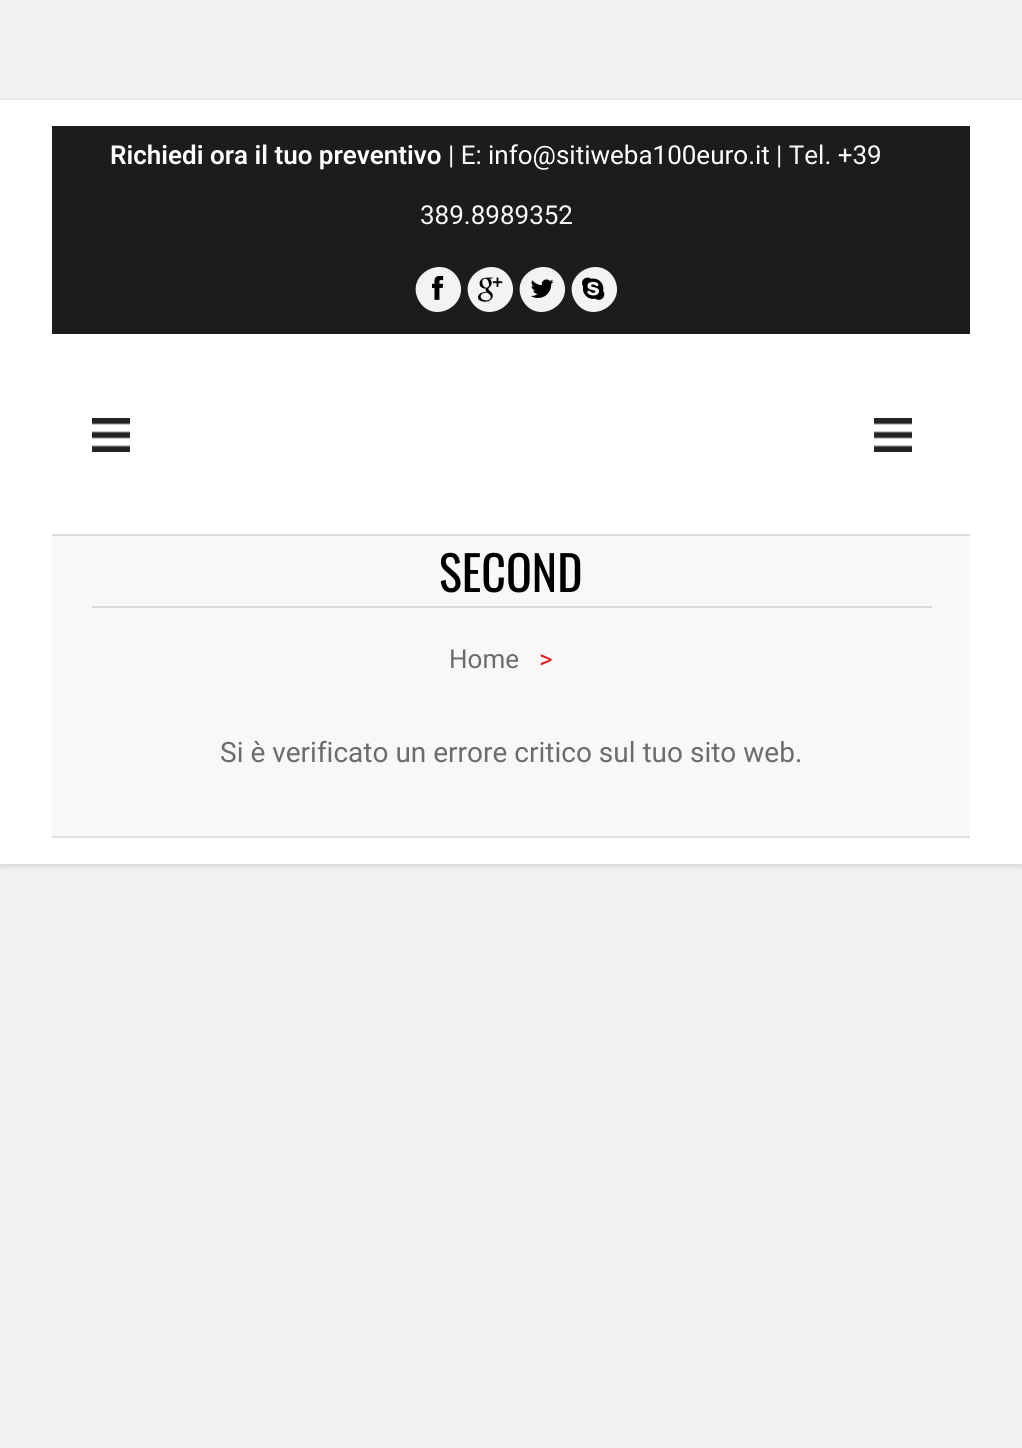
#include <cairo/cairo.h>
#include <math.h>
#include <stddef.h>

static cairo_t *cr;

static void use_color(int r, int g, int b) {
  cairo_set_source_rgb(cr, r / 255.0, g / 255.0, b / 255.0);
}

static void text(double x, double y, const char *s, const char *family, double size, int italic, int bold, int r, int g, int b) {
  cairo_select_font_face(cr, family, italic ? CAIRO_FONT_SLANT_ITALIC : CAIRO_FONT_SLANT_NORMAL,
    bold ? CAIRO_FONT_WEIGHT_BOLD : CAIRO_FONT_WEIGHT_NORMAL);
  cairo_set_font_size(cr, size);
  use_color(r, g, b);
  cairo_move_to(cr, x, y);
  cairo_show_text(cr, s);
}

static void box(double x, double y, double w, double h, int r, int g, int b) {
  use_color(r, g, b);
  cairo_rectangle(cr, x, y, w, h);
  cairo_fill(cr);
}

static void round_rect(double x, double y, double w, double h, double r) {
  cairo_new_sub_path(cr);
  cairo_arc(cr, x + w - r, y + h - r, r, 0, M_PI / 2);
  cairo_arc(cr, x + r, y + h - r, r, M_PI / 2, M_PI);
  cairo_arc(cr, x + r, y + r, r, M_PI, 1.5 * M_PI);
  cairo_arc(cr, x + w - r, y + r, r, 1.5 * M_PI, 2 * M_PI);
  cairo_close_path(cr);
}

static void shadow(double x, double y, double w, double h, double r, double blur, double alpha) {
  cairo_push_group_with_content(cr, CAIRO_CONTENT_ALPHA);
  cairo_set_operator(cr, CAIRO_OPERATOR_SOURCE);
  for (int i = 15; i >= -15 && fmin(w, h) + blur * i / 3 > 0; i -= 2) {
    double e = blur * i / 6;
    cairo_set_source_rgba(cr, 0, 0, 0, alpha * erfc((i - 1) / 8.5) / 2);
    round_rect(x - e, y - e, w + 2 * e, h + 2 * e, fmax(0, fmin(r + e + blur * .6, fmin(w, h) / 2 + e)));
    cairo_fill(cr);
  }
  cairo_pattern_t *soft = cairo_pop_group(cr);
  cairo_mask(cr, soft);
  cairo_pattern_destroy(soft);
}

static void picture(const char *path, double x, double y, double w, double h) {
  cairo_surface_t *image = cairo_image_surface_create_from_png(path);
  cairo_save(cr);
  cairo_set_source_surface(cr, image, x, y);
  cairo_rectangle(cr, x, y, w, h);
  cairo_fill(cr);
  cairo_restore(cr);
  cairo_surface_destroy(image);
}

static void draw(void) {
  use_color(241, 241, 241);
  cairo_paint(cr);
  use_color(0, 0, 0);
  shadow(0, 102, 1022, 764, 0, 3, 0.13);
  box(0, 100, 1022, 764, 255, 255, 255);
  box(52, 534, 918, 2, 219, 219, 219);
  box(52, 126, 918, 208, 28, 28, 28);
  use_color(243, 243, 243);
  cairo_new_path(cr);
  cairo_move_to(cr, 458, 278);
  cairo_curve_to(cr, 472, 304, 434, 326, 419, 301);
  cairo_curve_to(cr, 404, 275, 443, 253, 458, 278);
  cairo_close_path(cr);
  cairo_fill(cr);
  picture("img_01.png", 432, 275, 12, 25);
  cairo_new_path(cr);
  cairo_move_to(cr, 510, 278);
  cairo_curve_to(cr, 524, 304, 486, 326, 471, 301);
  cairo_curve_to(cr, 456, 275, 495, 253, 510, 278);
  cairo_close_path(cr);
  cairo_fill(cr);
  picture("img_02.png", 478, 277, 25, 25);
  cairo_new_path(cr);
  cairo_move_to(cr, 562, 278);
  cairo_curve_to(cr, 576, 304, 538, 326, 523, 301);
  cairo_curve_to(cr, 508, 275, 547, 253, 562, 278);
  cairo_close_path(cr);
  cairo_fill(cr);
  picture("img_03.png", 530, 279, 24, 19);
  cairo_new_path(cr);
  cairo_move_to(cr, 614, 278);
  cairo_curve_to(cr, 628, 304, 590, 326, 575, 301);
  cairo_curve_to(cr, 560, 275, 599, 253, 614, 278);
  cairo_close_path(cr);
  cairo_fill(cr);
  picture("img_04.png", 582, 277, 23, 23);
  picture("img_05.png", 92, 418, 38, 34);
  picture("img_05.png", 874, 418, 38, 34);
  box(52, 536, 918, 300, 248, 248, 248);
  box(52, 836, 918, 2, 224, 224, 224);
  box(92, 606, 840, 2, 218, 218, 218);
  text(110, 164, "Richiedi ora il tuo preventivo", "Roboto SemiBold", 26, 0, 0, 255, 255, 255);
  text(448, 164, "| E:", "Roboto", 26, 0, 0, 248, 248, 248);
  text(488, 164, "info@sitiweba100euro.it", "Roboto", 26, 0, 0, 255, 255, 255);
  text(776, 164, "| Tel. +39", "Roboto", 26, 0, 0, 248, 248, 248);
  text(420, 224, "389.8989352", "Roboto", 26, 0, 0, 248, 248, 248);
  text(439, 592, "SECOND", "Oswald", 48, 0, 0, 0, 0, 0);
  text(449, 668, "Home", "Roboto", 26, 0, 0, 108, 108, 108);
  text(539, 668, ">", "Roboto", 26, 0, 0, 230, 28, 28);
  text(220, 762, "Si è verificato un errore critico sul tuo sito web.", "Roboto", 28, 0, 0, 108, 108, 108);
}

int main(void) {
  cairo_surface_t *surface = cairo_image_surface_create(CAIRO_FORMAT_RGB24, 1022, 1448);
  cr = cairo_create(surface);
  cairo_font_options_t *options = cairo_font_options_create();
  cairo_font_options_set_hint_metrics(options, CAIRO_HINT_METRICS_OFF);
  cairo_font_options_set_hint_style(options, CAIRO_HINT_STYLE_NONE);
  cairo_set_font_options(cr, options);
  cairo_set_miter_limit(cr, 4);
  draw();
  cairo_surface_write_to_png(surface, "out.png");
  cairo_font_options_destroy(options);
  cairo_destroy(cr);
  cairo_surface_destroy(surface);
  return 0;
}
